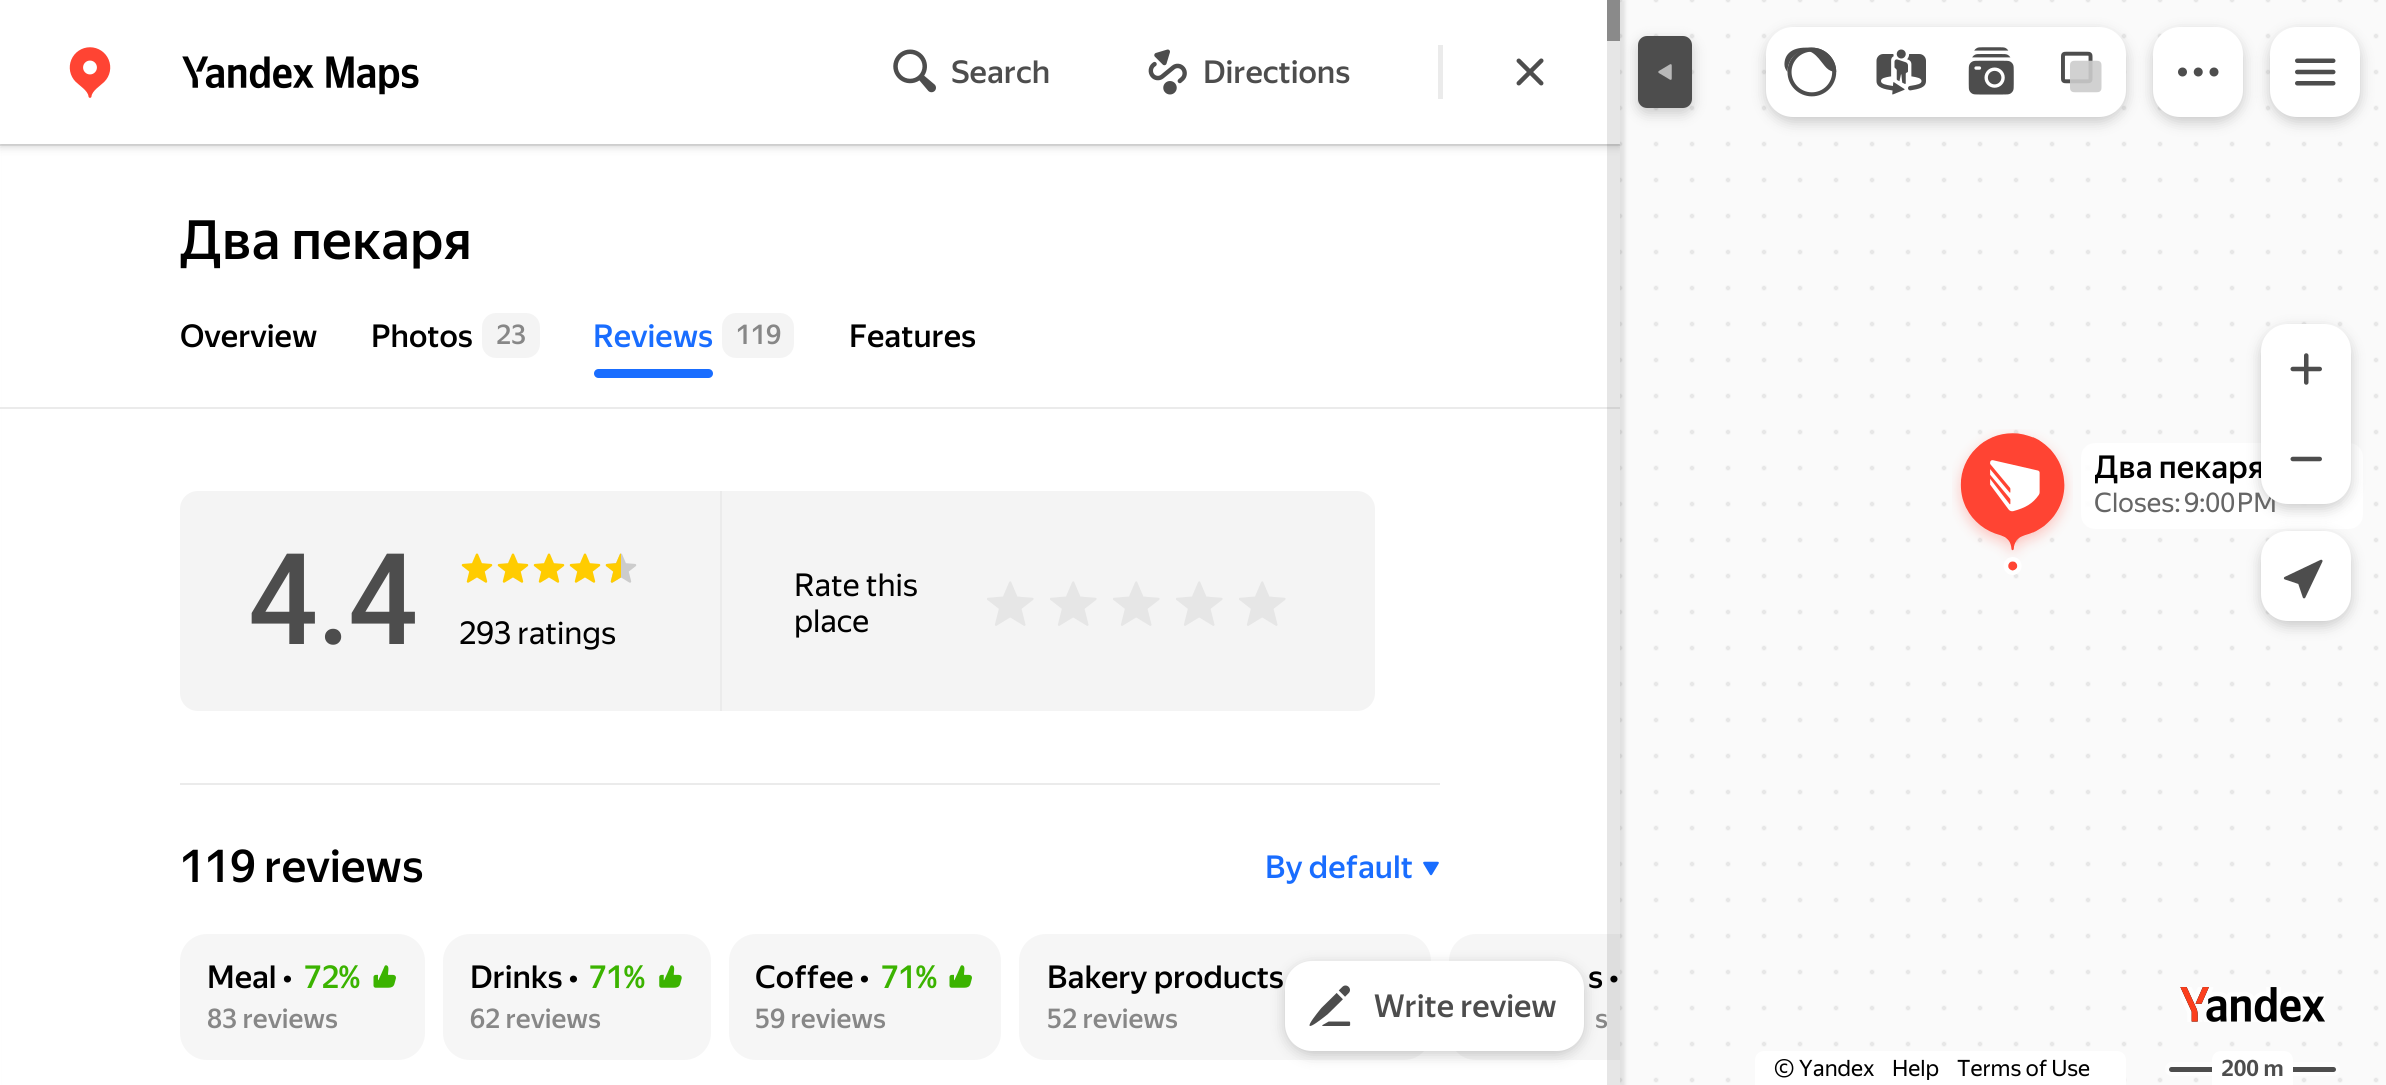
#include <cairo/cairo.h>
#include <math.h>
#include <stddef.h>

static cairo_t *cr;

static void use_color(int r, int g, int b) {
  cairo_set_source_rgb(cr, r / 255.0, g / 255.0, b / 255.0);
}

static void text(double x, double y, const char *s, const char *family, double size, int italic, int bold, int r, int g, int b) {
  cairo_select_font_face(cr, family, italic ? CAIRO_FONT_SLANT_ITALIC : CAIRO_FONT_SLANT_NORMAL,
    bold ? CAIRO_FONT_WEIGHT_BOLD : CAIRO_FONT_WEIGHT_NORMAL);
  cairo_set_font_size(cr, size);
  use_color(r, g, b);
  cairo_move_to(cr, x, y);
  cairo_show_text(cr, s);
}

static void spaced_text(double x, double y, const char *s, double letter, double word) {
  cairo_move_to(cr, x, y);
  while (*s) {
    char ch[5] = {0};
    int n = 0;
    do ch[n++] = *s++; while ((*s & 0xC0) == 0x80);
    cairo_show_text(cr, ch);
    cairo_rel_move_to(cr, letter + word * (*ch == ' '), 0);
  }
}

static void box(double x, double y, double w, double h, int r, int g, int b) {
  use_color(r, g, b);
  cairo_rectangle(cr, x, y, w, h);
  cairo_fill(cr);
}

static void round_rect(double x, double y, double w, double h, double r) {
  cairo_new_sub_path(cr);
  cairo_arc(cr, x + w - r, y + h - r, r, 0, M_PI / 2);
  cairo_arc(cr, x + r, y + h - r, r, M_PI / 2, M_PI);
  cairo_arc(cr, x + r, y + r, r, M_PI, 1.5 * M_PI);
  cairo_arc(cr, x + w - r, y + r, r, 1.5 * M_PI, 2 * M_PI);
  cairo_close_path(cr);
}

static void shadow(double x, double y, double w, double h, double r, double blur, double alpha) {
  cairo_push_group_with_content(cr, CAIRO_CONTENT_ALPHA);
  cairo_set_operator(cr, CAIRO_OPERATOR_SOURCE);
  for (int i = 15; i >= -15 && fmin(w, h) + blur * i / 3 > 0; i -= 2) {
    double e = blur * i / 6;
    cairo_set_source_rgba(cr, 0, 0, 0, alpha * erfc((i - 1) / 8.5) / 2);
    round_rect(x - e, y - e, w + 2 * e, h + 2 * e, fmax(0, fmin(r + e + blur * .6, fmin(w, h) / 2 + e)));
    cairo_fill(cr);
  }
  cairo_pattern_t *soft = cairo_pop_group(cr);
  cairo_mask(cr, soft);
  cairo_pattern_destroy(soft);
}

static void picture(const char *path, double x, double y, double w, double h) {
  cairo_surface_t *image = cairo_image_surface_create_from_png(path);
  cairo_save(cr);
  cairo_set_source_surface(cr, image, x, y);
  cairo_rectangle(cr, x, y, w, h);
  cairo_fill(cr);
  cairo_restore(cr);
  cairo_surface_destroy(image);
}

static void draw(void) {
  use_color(255, 255, 255);
  cairo_paint(cr);
  picture("img_01.png", 1620, 0, 766, 1085);
  use_color(0, 0, 0);
  shadow(5, 0, 1620, 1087, 0, 2, 0.1);
  box(2, 146, 1618, 939, 255, 255, 255);
  box(0, 144, 1620, 2, 235, 235, 235);
  cairo_save(cr);
  cairo_rectangle(cr, 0, 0, 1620, 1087);
  cairo_clip(cr);
  use_color(0, 0, 0);
  shadow(0, 137, 1620, 9, 0, 4.5, 0.2);
  cairo_restore(cr);
  use_color(0, 0, 0);
  shadow(1638, 41, 54, 72, 9, 7, 0.2);
  box(0, 0, 1620, 144, 255, 255, 255);
  box(1607, 0, 13, 41, 138, 138, 138);
  box(0, 407, 1620, 2, 235, 235, 235);
  use_color(246, 246, 246);
  cairo_new_path(cr);
  cairo_move_to(cr, 1476, 934);
  cairo_line_to(cr, 1620, 934);
  cairo_line_to(cr, 1620, 1060);
  cairo_line_to(cr, 1476, 1060);
  cairo_curve_to(cr, 1461, 1060, 1449, 1048, 1449, 1033);
  cairo_line_to(cr, 1449, 961);
  cairo_curve_to(cr, 1449, 946, 1461, 934, 1476, 934);
  cairo_close_path(cr);
  cairo_fill(cr);
  cairo_set_source_rgba(cr, 0, 0, 0, 0.1);
  cairo_rectangle(cr, 1607, 41, 13, 1044);
  cairo_fill(cr);
  picture("img_02.png", 69, 47, 42, 51);
  picture("img_03.png", 182, 56, 237, 39);
  picture("img_04.png", 893, 49, 43, 44);
  picture("img_05.png", 1148, 49, 39, 46);
  box(1438, 45, 5, 54, 235, 235, 235);
  picture("img_06.png", 1516, 58, 28, 28);
  use_color(244, 244, 244);
  round_rect(482, 313, 58, 45, 14);
  cairo_fill(cr);
  round_rect(722, 313, 72, 45, 14);
  cairo_fill(cr);
  use_color(25, 109, 255);
  round_rect(594, 369, 119, 9, 4.5);
  cairo_fill(cr);
  use_color(244, 244, 244);
  cairo_new_path(cr);
  cairo_move_to(cr, 198, 491);
  cairo_line_to(cr, 720, 491);
  cairo_line_to(cr, 720, 711);
  cairo_line_to(cr, 198, 711);
  cairo_curve_to(cr, 188, 711, 180, 703, 180, 693);
  cairo_line_to(cr, 180, 509);
  cairo_curve_to(cr, 180, 499, 188, 491, 198, 491);
  cairo_close_path(cr);
  cairo_fill(cr);
  picture("img_07.png", 461, 553, 32, 30);
  picture("img_07.png", 497, 553, 32, 30);
  picture("img_07.png", 533, 553, 32, 30);
  picture("img_07.png", 569, 553, 32, 30);
  picture("img_08.png", 605, 553, 32, 30);
  cairo_new_path(cr);
  cairo_move_to(cr, 720, 491);
  cairo_line_to(cr, 1357, 491);
  cairo_curve_to(cr, 1367, 491, 1375, 499, 1375, 509);
  cairo_line_to(cr, 1375, 693);
  cairo_curve_to(cr, 1375, 703, 1367, 711, 1357, 711);
  cairo_line_to(cr, 720, 711);
  cairo_close_path(cr);
  cairo_fill(cr);
  box(720, 491, 2, 220, 235, 235, 235);
  picture("img_09.png", 987, 581, 47, 45);
  picture("img_09.png", 1050, 581, 47, 45);
  picture("img_09.png", 1113, 581, 47, 45);
  picture("img_09.png", 1176, 581, 47, 45);
  picture("img_09.png", 1239, 581, 47, 45);
  box(180, 783, 1260, 2, 235, 235, 235);
  picture("img_10.png", 1423, 861, 16, 15);
  use_color(246, 246, 246);
  round_rect(180, 934, 245, 126, 27);
  cairo_fill(cr);
  picture("img_11.png", 373, 965, 23, 23);
  round_rect(443, 934, 268, 126, 27);
  cairo_fill(cr);
  picture("img_12.png", 659, 965, 23, 23);
  round_rect(729, 934, 272, 126, 27);
  cairo_fill(cr);
  picture("img_11.png", 949, 965, 23, 23);
  round_rect(1019, 934, 412, 126, 27);
  cairo_fill(cr);
  use_color(0, 0, 0);
  shadow(1285, 965, 299, 90, 27, 7, 0.2);
  use_color(255, 255, 255);
  round_rect(1285, 961, 299, 90, 27);
  cairo_fill(cr);
  picture("img_13.png", 1309, 985, 42, 41);
  use_color(77, 77, 77);
  round_rect(1638, 36, 54, 72, 9);
  cairo_fill(cr);
  picture("img_14.png", 1658, 64, 14, 16);
  use_color(0, 0, 0);
  shadow(1766, 32, 360, 90, 27, 7, 0.2);
  use_color(255, 255, 255);
  cairo_new_path(cr);
  cairo_move_to(cr, 1793, 27);
  cairo_line_to(cr, 1856, 27);
  cairo_line_to(cr, 1856, 117);
  cairo_line_to(cr, 1793, 117);
  cairo_curve_to(cr, 1778, 117, 1766, 105, 1766, 90);
  cairo_line_to(cr, 1766, 54);
  cairo_curve_to(cr, 1766, 39, 1778, 27, 1793, 27);
  cairo_close_path(cr);
  cairo_fill(cr);
  picture("img_15.png", 1784, 47, 53, 50);
  box(1856, 27, 180, 90, 255, 255, 255);
  picture("img_16.png", 1876, 49, 50, 46);
  cairo_new_path(cr);
  cairo_move_to(cr, 2036, 27);
  cairo_line_to(cr, 2099, 27);
  cairo_curve_to(cr, 2114, 27, 2126, 39, 2126, 54);
  cairo_line_to(cr, 2126, 90);
  cairo_curve_to(cr, 2126, 105, 2114, 117, 2099, 117);
  cairo_line_to(cr, 2036, 117);
  cairo_close_path(cr);
  cairo_fill(cr);
  picture("img_17.png", 2061, 51, 41, 42);
  picture("img_18.png", 1968, 47, 46, 48);
  use_color(0, 0, 0);
  shadow(2153, 32, 90, 90, 27, 7, 0.2);
  use_color(255, 255, 255);
  round_rect(2153, 27, 90, 90, 27);
  cairo_fill(cr);
  picture("img_19.png", 2178, 67, 41, 10);
  use_color(0, 0, 0);
  shadow(2270, 32, 90, 90, 27, 7, 0.2);
  use_color(255, 255, 255);
  round_rect(2270, 27, 90, 90, 27);
  cairo_fill(cr);
  picture("img_20.png", 2295, 58, 41, 28);
  cairo_set_source_rgba(cr, 1, 1, 1, 0.9);
  round_rect(2081, 443, 282, 86, 14);
  cairo_fill(cr);
  use_color(0, 0, 0);
  shadow(2261, 329, 90, 180, 27, 7, 0.2);
  use_color(255, 255, 255);
  cairo_new_path(cr);
  cairo_move_to(cr, 2288, 324);
  cairo_line_to(cr, 2324, 324);
  cairo_curve_to(cr, 2339, 324, 2351, 336, 2351, 351);
  cairo_line_to(cr, 2351, 414);
  cairo_line_to(cr, 2261, 414);
  cairo_line_to(cr, 2261, 351);
  cairo_curve_to(cr, 2261, 336, 2273, 324, 2288, 324);
  cairo_close_path(cr);
  cairo_fill(cr);
  picture("img_21.png", 2290, 353, 32, 32);
  use_color(0, 0, 0);
  shadow(2261, 536, 90, 90, 27, 7, 0.2);
  use_color(255, 255, 255);
  round_rect(2261, 531, 90, 90, 27);
  cairo_fill(cr);
  picture("img_23.png", 2283, 559, 40, 40);
  picture("img_24.png", 2180, 987, 145, 35);
  cairo_new_path(cr);
  cairo_move_to(cr, 1764, 1051);
  cairo_line_to(cr, 2117, 1051);
  cairo_curve_to(cr, 2122, 1051, 2126, 1055, 2126, 1060);
  cairo_line_to(cr, 2126, 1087);
  cairo_line_to(cr, 1755, 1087);
  cairo_line_to(cr, 1755, 1060);
  cairo_curve_to(cr, 1755, 1055, 1759, 1051, 1764, 1051);
  cairo_close_path(cr);
  cairo_fill(cr);
  use_color(253, 253, 253);
  round_rect(2165, 1062, 175, 14, 7);
  cairo_fill(cr);
  use_color(77, 77, 77);
  round_rect(2169, 1067, 167, 5, 2.5);
  cairo_fill(cr);
  use_color(255, 255, 255);
  cairo_new_path(cr);
  cairo_move_to(cr, 2221, 1051);
  cairo_line_to(cr, 2284, 1051);
  cairo_curve_to(cr, 2289, 1051, 2293, 1055, 2293, 1060);
  cairo_line_to(cr, 2293, 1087);
  cairo_line_to(cr, 2212, 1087);
  cairo_line_to(cr, 2212, 1060);
  cairo_curve_to(cr, 2212, 1055, 2216, 1051, 2221, 1051);
  cairo_close_path(cr);
  cairo_fill(cr);
  picture("img_25.png", 1952, 429, 121, 146);
  picture("img_26.png", 1990, 460, 50, 52);
  text(951, 83, "Search", "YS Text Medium", 31.5, 0, 0, 77, 77, 77);
  text(1203, 83, "Directions", "YS Text Medium", 31.5, 0, 0, 77, 77, 77);
  text(180, 259, "Два пекаря", "YS Text Medium", 54, 0, 0, 0, 0, 0);
  text(180, 347, "Overview", "YS Text Medium", 31.5, 0, 0, 0, 0, 0);
  text(371, 347, "Photos", "YS Text Medium", 31.5, 0, 0, 0, 0, 0);
  text(496, 344, "23", "YS Text Medium", 27, 0, 0, 135, 135, 135);
  text(593, 347, "Reviews", "YS Text Medium", 31.5, 0, 0, 25, 109, 255);
  text(736, 344, "119", "YS Text Medium", 27, 0, 0, 135, 135, 135);
  text(849, 347, "Features", "YS Text Medium", 31.5, 0, 0, 0, 0, 0);
  text(248, 644, "4", "YS Text Medium", 126, 0, 0, 77, 77, 77);
  text(318, 644, ".", "YS Text", 126, 0, 0, 77, 77, 77);
  text(348, 644, "4", "YS Text Medium", 126, 0, 0, 77, 77, 77);
  text(459, 644, "293 ratings", "YS Text", 31.5, 0, 0, 0, 0, 0);
  text(794, 596, "Rate this", "YS Text", 31.5, 0, 0, 0, 0, 0);
  text(794, 632, "place", "YS Text", 31.5, 0, 0, 0, 0, 0);
  text(180, 882, "119 reviews", "YS Text Medium", 45, 0, 0, 0, 0, 0);
  text(1265, 878, "By default", "YS Text Medium", 31.5, 0, 0, 25, 109, 255);
  text(207, 988, "Meal •", "YS Text Medium", 31.5, 0, 0, 0, 0, 0);
  text(304, 988, "72%", "YS Text Medium", 31.5, 0, 0, 59, 179, 0);
  text(207, 1028, "83 reviews", "YS Text Medium", 27, 0, 0, 135, 135, 135);
  text(470, 988, "Drinks •", "YS Text Medium", 31.5, 0, 0, 0, 0, 0);
  text(589, 988, "71%", "YS Text Medium", 31.5, 0, 0, 59, 179, 0);
  text(470, 1028, "62 reviews", "YS Text Medium", 27, 0, 0, 135, 135, 135);
  text(755, 988, "Coffee •", "YS Text Medium", 31.5, 0, 0, 0, 0, 0);
  text(881, 988, "71%", "YS Text Medium", 31.5, 0, 0, 59, 179, 0);
  text(755, 1028, "59 reviews", "YS Text Medium", 27, 0, 0, 135, 135, 135);
  text(1047, 988, "Bakery products", "YS Text Medium", 31.5, 0, 0, 0, 0, 0);
  text(1047, 1028, "52 reviews", "YS Text Medium", 27, 0, 0, 135, 135, 135);
  text(1588, 988, "s •", "YS Text Medium", 31.5, 0, 0, 0, 0, 0);
  text(1595, 1028, "s", "YS Text Medium", 27, 0, 0, 135, 135, 135);
  text(1374, 1017, "Write review", "YS Text Medium", 31.5, 0, 0, 77, 77, 77);
  text(1774, 1076, "© Yandex", "YS Text", 22.5, 0, 0, 0, 0, 0);
  text(1892, 1076, "Help", "YS Text", 22.5, 0, 0, 0, 0, 0);
  text(1957, 1076, "Terms of Use", "YS Text", 22.5, 0, 0, 0, 0, 0);
  text(2221, 1076, "200 m", "YS Text", 22.5, 0, 1, 77, 77, 77);
  cairo_save(cr);
  cairo_rectangle(cr, 2095, 450, 171, 36);
  cairo_clip(cr);
  text(2094, 478, "Два пекаря", "YS Text Medium", 31.5, 0, 0, 0, 0, 0);
  cairo_restore(cr);
  cairo_save(cr);
  cairo_rectangle(cr, 2095, 488, 254, 32);
  cairo_clip(cr);
  cairo_select_font_face(cr, "YS Text", CAIRO_FONT_SLANT_NORMAL, CAIRO_FONT_WEIGHT_NORMAL);
  cairo_set_font_size(cr, 27);
  use_color(102, 102, 102);
  spaced_text(2094, 512, "Closes: 9:00 PM", 0, -2);
  cairo_restore(cr);
  use_color(255, 255, 255);
  cairo_new_path(cr);
  cairo_move_to(cr, 2261, 414);
  cairo_line_to(cr, 2351, 414);
  cairo_line_to(cr, 2351, 477);
  cairo_curve_to(cr, 2351, 492, 2339, 504, 2324, 504);
  cairo_line_to(cr, 2288, 504);
  cairo_curve_to(cr, 2273, 504, 2261, 492, 2261, 477);
  cairo_close_path(cr);
  cairo_fill(cr);
  picture("img_22.png", 2290, 456, 32, 6);
}

int main(void) {
  cairo_surface_t *surface = cairo_image_surface_create(CAIRO_FORMAT_RGB24, 2386, 1085);
  cr = cairo_create(surface);
  cairo_font_options_t *options = cairo_font_options_create();
  cairo_font_options_set_hint_metrics(options, CAIRO_HINT_METRICS_OFF);
  cairo_font_options_set_hint_style(options, CAIRO_HINT_STYLE_NONE);
  cairo_set_font_options(cr, options);
  cairo_set_miter_limit(cr, 4);
  draw();
  cairo_surface_write_to_png(surface, "out.png");
  cairo_font_options_destroy(options);
  cairo_destroy(cr);
  cairo_surface_destroy(surface);
  return 0;
}
